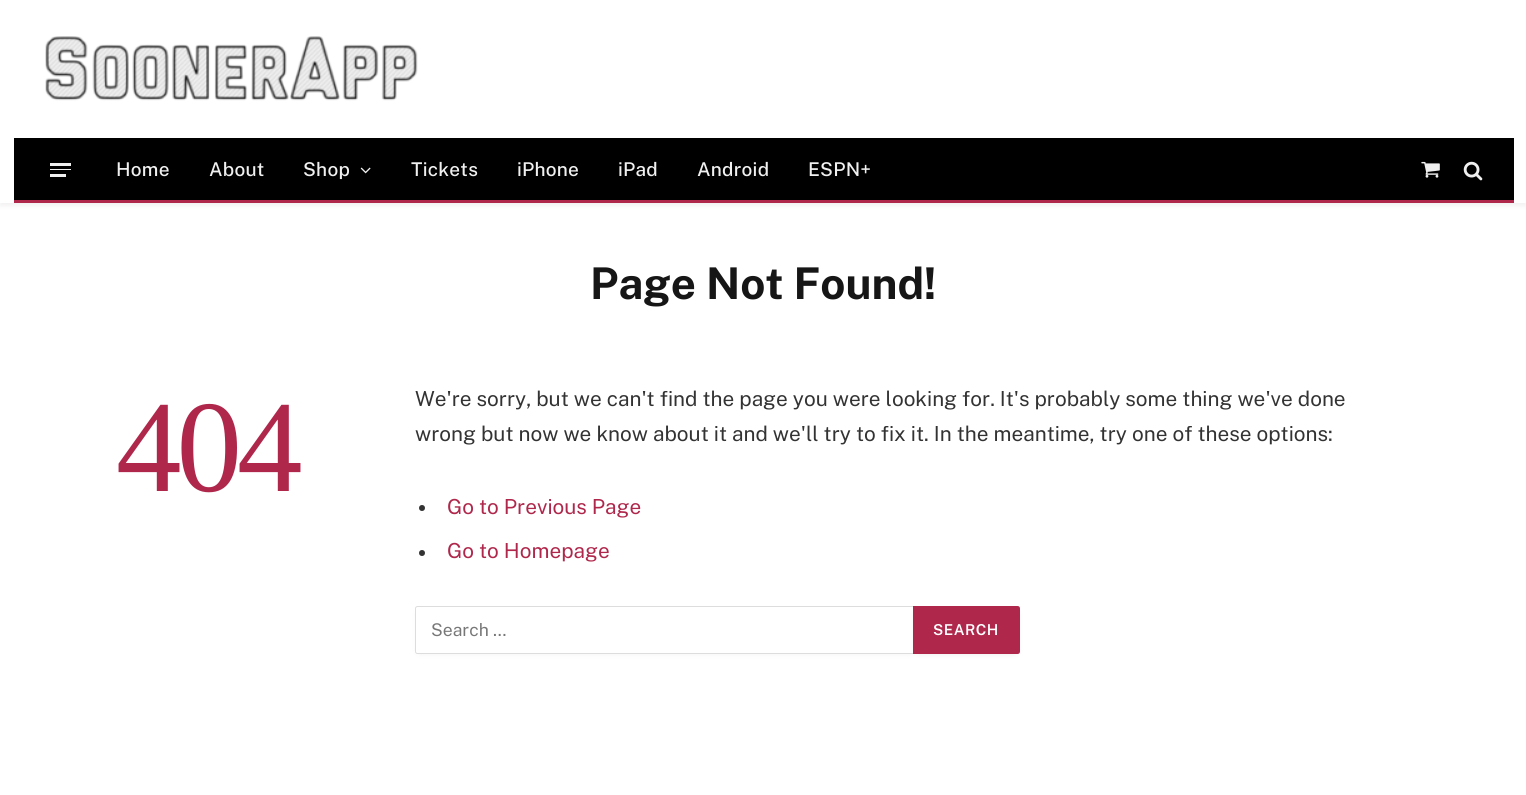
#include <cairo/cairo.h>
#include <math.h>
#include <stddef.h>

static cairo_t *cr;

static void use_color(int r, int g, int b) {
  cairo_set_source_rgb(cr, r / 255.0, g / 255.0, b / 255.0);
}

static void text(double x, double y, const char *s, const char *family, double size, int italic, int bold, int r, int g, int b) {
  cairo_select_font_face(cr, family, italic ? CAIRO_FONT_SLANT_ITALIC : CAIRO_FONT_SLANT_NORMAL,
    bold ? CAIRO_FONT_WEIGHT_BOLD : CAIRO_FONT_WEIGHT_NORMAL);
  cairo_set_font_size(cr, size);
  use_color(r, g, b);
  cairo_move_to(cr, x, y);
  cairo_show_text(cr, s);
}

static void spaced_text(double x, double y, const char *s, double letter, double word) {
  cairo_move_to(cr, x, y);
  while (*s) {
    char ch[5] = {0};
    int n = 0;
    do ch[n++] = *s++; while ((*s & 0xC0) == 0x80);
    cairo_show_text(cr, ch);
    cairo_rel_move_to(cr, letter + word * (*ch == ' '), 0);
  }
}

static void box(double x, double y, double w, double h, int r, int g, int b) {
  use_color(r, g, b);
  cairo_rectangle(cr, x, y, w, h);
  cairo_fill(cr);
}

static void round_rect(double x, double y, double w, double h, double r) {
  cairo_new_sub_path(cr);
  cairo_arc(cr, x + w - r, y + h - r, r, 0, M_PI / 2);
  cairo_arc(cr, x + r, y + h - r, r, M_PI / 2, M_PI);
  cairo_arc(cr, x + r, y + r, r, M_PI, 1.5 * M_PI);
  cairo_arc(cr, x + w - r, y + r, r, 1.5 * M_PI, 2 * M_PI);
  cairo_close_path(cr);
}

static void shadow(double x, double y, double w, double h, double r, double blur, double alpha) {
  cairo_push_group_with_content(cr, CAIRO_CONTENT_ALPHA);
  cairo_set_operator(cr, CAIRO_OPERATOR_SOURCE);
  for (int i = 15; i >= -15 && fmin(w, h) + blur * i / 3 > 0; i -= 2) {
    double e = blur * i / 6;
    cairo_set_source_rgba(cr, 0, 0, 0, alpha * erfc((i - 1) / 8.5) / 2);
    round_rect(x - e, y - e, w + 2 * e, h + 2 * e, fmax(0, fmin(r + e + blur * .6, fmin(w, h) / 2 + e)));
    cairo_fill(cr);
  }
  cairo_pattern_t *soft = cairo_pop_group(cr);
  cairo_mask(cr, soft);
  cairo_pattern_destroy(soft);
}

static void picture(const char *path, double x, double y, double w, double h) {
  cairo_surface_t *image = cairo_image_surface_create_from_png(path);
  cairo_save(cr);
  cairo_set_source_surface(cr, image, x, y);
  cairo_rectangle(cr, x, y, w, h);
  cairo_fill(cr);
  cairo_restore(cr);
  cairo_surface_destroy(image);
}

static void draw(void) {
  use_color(255, 255, 255);
  cairo_paint(cr);
  cairo_save(cr);
  cairo_set_fill_rule(cr, CAIRO_FILL_RULE_EVEN_ODD);
  cairo_new_path(cr);
  cairo_move_to(cr, 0, 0);
  cairo_line_to(cr, 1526, 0);
  cairo_line_to(cr, 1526, 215);
  cairo_line_to(cr, 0, 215);
  cairo_close_path(cr);
  cairo_move_to(cr, 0, 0);
  cairo_line_to(cr, 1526, 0);
  cairo_line_to(cr, 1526, 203);
  cairo_line_to(cr, 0, 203);
  cairo_close_path(cr);
  cairo_clip(cr);
  use_color(10, 10, 10);
  shadow(0, 4, 1526, 202, 0, 2.5, 0.06);
  cairo_restore(cr);
  picture("img_01.png", 45, 36, 373, 65);
  box(14, 138, 1500, 62, 0, 0, 0);
  box(14, 200, 1500, 3, 175, 40, 76);
  box(50, 174, 16, 3, 240, 240, 240);
  box(50, 163, 21, 3, 240, 240, 240);
  box(50, 169, 21, 1, 240, 240, 240);
  picture("img_02.png", 360, 167, 11, 7);
  picture("img_03.png", 1421, 161, 19, 17);
  picture("img_04.png", 1463, 161, 20, 20);
  use_color(51, 51, 51);
  cairo_arc(cr, 422, 508, 3, 0, 2 * M_PI);
  cairo_fill(cr);
  cairo_arc(cr, 422, 553, 3, 0, 2 * M_PI);
  cairo_fill(cr);
  use_color(0, 0, 0);
  shadow(420, 614, 490, 37, 0, 4.5, 0.1);
  use_color(255, 255, 255);
  round_rect(415.5, 606.5, 499, 47, 2);
  cairo_fill_preserve(cr);
  use_color(221, 221, 221);
  cairo_set_line_width(cr, 1);
  cairo_stroke(cr);
  use_color(0, 0, 0);
  shadow(918, 614, 97, 37, 0, 4.5, 0.16);
  use_color(175, 40, 76);
  cairo_new_path(cr);
  cairo_move_to(cr, 913, 606);
  cairo_line_to(cr, 1017.5, 606);
  cairo_curve_to(cr, 1019, 606, 1020, 607, 1020, 608.5);
  cairo_line_to(cr, 1020, 651.5);
  cairo_curve_to(cr, 1020, 653, 1019, 654, 1017.5, 654);
  cairo_line_to(cr, 913, 654);
  cairo_close_path(cr);
  cairo_fill(cr);
  cairo_select_font_face(cr, "Public Sans Medium", CAIRO_FONT_SLANT_NORMAL, CAIRO_FONT_WEIGHT_NORMAL);
  cairo_set_font_size(cr, 19);
  use_color(240, 240, 240);
  spaced_text(116, 176, "Home", 0.25, 0);
  spaced_text(209, 176, "About", 0.25, 0);
  spaced_text(303, 176, "Shop", 0.25, 0);
  spaced_text(411, 176, "Tickets", 0.25, 0);
  spaced_text(517, 176, "iPhone", 0.25, 0);
  spaced_text(618, 176, "iPad", 0.25, 0);
  spaced_text(697, 176, "Android", 0.25, 0);
  spaced_text(808, 176, "ESPN+", 0.25, 0);
  text(590, 299, "Page Not Found!", "Public Sans", 43.75, 0, 1, 22, 22, 22);
  cairo_select_font_face(cr, "Liberation Serif", CAIRO_FONT_SLANT_NORMAL, CAIRO_FONT_WEIGHT_NORMAL);
  cairo_set_font_size(cr, 131);
  use_color(175, 40, 76);
  spaced_text(116, 491, "404", -5, 0);
  text(415, 406, "We're sorry, but we can't find the page you were looking for. It's probably some thing we've done", "Public Sans", 20.75, 0, 0, 51, 51, 51);
  text(415, 441, "wrong but now we know about it and we'll try to fix it. In the meantime, try one of these options:", "Public Sans", 20.75, 0, 0, 51, 51, 51);
  text(447, 514, "Go to Previous Page", "Public Sans", 20.75, 0, 0, 175, 40, 76);
  text(447, 558, "Go to Homepage", "Public Sans", 20.75, 0, 0, 175, 40, 76);
  text(431, 636, "Search …", "Public Sans", 17.5, 0, 0, 119, 119, 119);
  cairo_select_font_face(cr, "Public Sans SemiBold", CAIRO_FONT_SLANT_NORMAL, CAIRO_FONT_WEIGHT_NORMAL);
  cairo_set_font_size(cr, 15);
  use_color(255, 255, 255);
  spaced_text(933, 635, "SEARCH", 0.5, 0);
}

int main(void) {
  cairo_surface_t *surface = cairo_image_surface_create(CAIRO_FORMAT_RGB24, 1526, 795);
  cr = cairo_create(surface);
  cairo_font_options_t *options = cairo_font_options_create();
  cairo_font_options_set_hint_metrics(options, CAIRO_HINT_METRICS_OFF);
  cairo_font_options_set_hint_style(options, CAIRO_HINT_STYLE_NONE);
  cairo_set_font_options(cr, options);
  cairo_set_miter_limit(cr, 4);
  draw();
  cairo_surface_write_to_png(surface, "out.png");
  cairo_font_options_destroy(options);
  cairo_destroy(cr);
  cairo_surface_destroy(surface);
  return 0;
}
